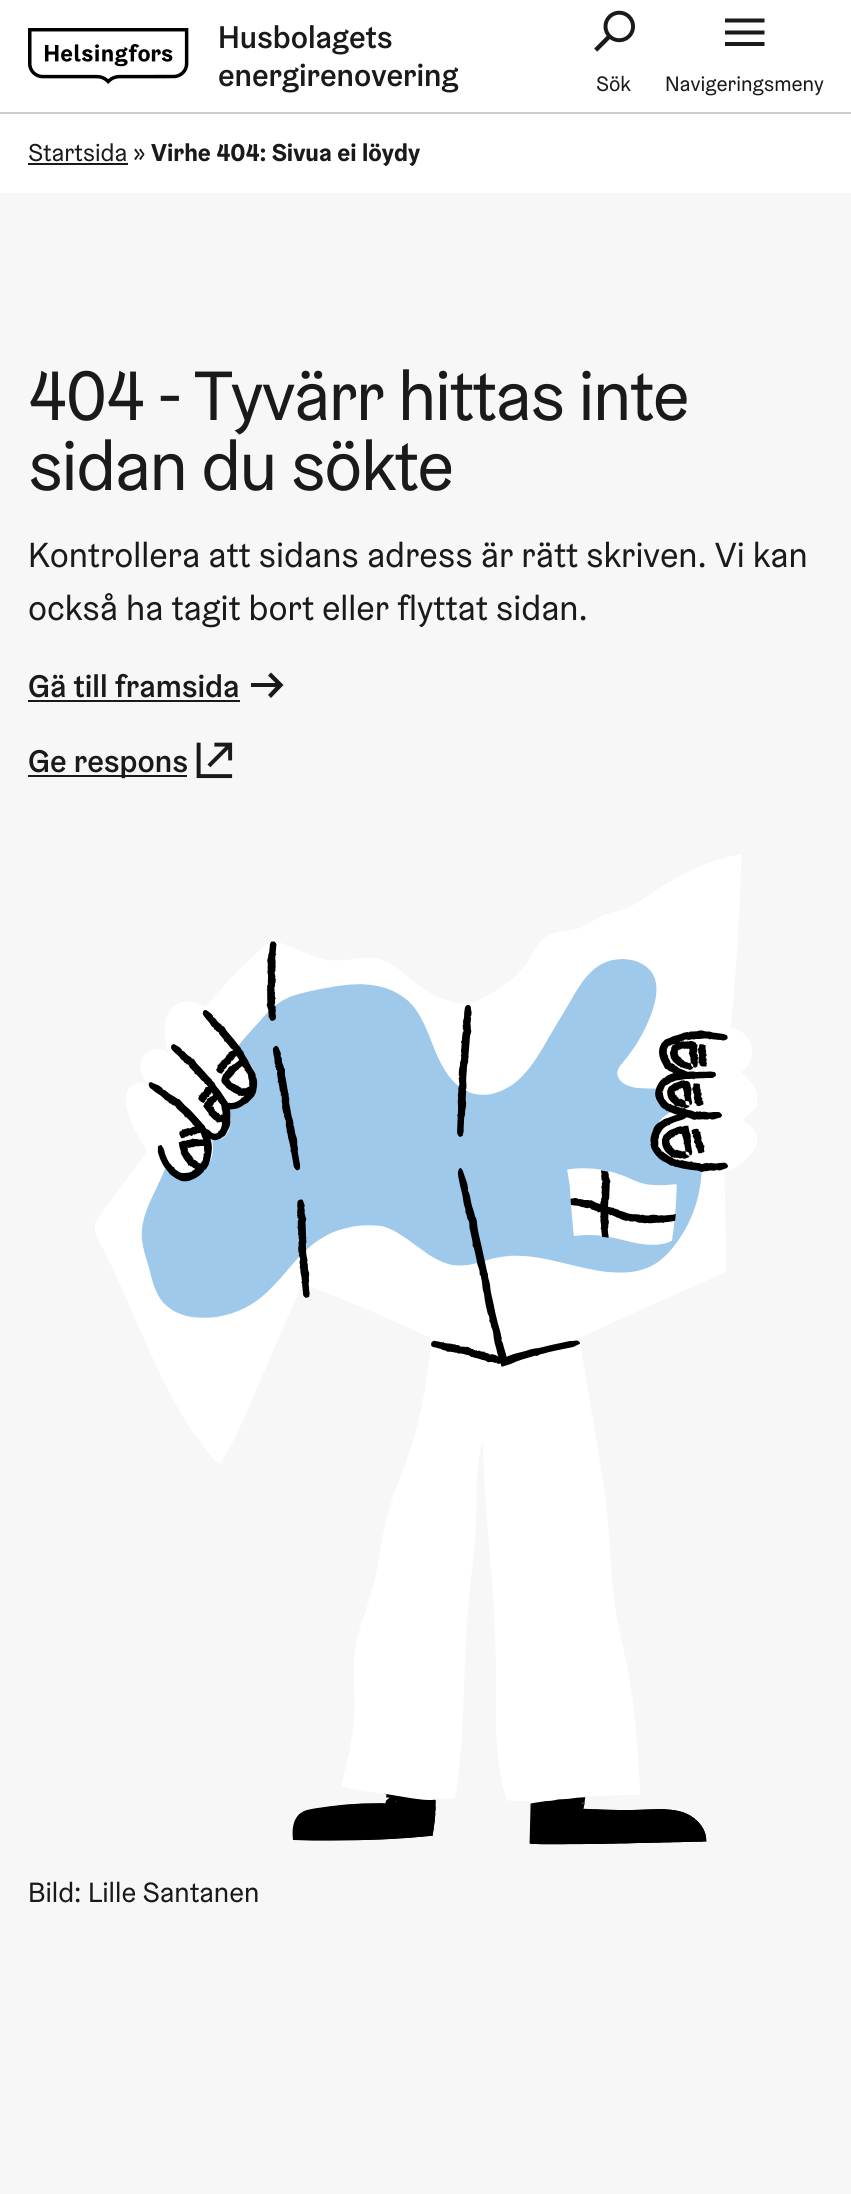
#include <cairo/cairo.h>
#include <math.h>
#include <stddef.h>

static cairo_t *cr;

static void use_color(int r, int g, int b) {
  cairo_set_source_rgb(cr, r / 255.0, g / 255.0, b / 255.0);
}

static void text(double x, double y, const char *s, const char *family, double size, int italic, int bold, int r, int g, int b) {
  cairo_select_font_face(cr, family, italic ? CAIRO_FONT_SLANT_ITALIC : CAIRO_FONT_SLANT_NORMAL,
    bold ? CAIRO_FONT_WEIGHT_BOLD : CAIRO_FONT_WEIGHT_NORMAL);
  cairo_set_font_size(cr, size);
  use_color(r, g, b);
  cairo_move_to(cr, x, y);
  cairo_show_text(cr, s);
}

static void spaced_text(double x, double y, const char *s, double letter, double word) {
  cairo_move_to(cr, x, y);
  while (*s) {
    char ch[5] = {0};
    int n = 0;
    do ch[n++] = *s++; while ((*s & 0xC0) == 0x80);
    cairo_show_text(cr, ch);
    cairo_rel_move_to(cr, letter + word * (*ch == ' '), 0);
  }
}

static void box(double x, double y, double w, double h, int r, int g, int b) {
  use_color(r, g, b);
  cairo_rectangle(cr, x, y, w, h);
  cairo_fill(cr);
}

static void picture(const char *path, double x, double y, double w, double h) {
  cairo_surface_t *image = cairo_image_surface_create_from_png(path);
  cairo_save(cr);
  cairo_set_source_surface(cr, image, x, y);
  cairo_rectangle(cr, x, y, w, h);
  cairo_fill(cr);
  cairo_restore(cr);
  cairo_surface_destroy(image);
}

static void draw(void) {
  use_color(255, 255, 255);
  cairo_paint(cr);
  box(0, 112, 851, 2, 204, 204, 204);
  picture("img_01.png", 28, 28, 161, 56);
  picture("img_02.png", 594, 10, 41, 42);
  use_color(26, 26, 26);
  cairo_set_fill_rule(cr, CAIRO_FILL_RULE_EVEN_ODD);
  cairo_new_path(cr);
  cairo_move_to(cr, 764.5, 42);
  cairo_line_to(cr, 764.5, 46);
  cairo_line_to(cr, 725, 46);
  cairo_line_to(cr, 725, 42);
  cairo_close_path(cr);
  cairo_move_to(cr, 764.5, 30.5);
  cairo_line_to(cr, 764.5, 34.5);
  cairo_line_to(cr, 725, 34.5);
  cairo_line_to(cr, 725, 30.5);
  cairo_close_path(cr);
  cairo_move_to(cr, 764.5, 18.5);
  cairo_line_to(cr, 764.5, 22.5);
  cairo_line_to(cr, 725, 22.5);
  cairo_line_to(cr, 725, 18.5);
  cairo_close_path(cr);
  cairo_fill(cr);
  box(28, 163, 100, 2, 26, 26, 26);
  box(0, 193, 851, 2001, 247, 247, 248);
  box(28, 700, 212, 2, 26, 26, 26);
  cairo_new_path(cr);
  cairo_move_to(cr, 271, 672.5);
  cairo_line_to(cr, 268, 675.5);
  cairo_line_to(cr, 275.5, 683);
  cairo_line_to(cr, 251, 683);
  cairo_line_to(cr, 251, 687);
  cairo_line_to(cr, 275.5, 687);
  cairo_line_to(cr, 268, 695);
  cairo_line_to(cr, 271, 698);
  cairo_line_to(cr, 283.5, 685);
  cairo_close_path(cr);
  cairo_fill(cr);
  box(28, 775, 159, 2, 26, 26, 26);
  picture("img_03.png", 196, 742, 37, 37);
  picture("img_04.png", 95, 854, 662, 991);
  text(218, 48, "Husbolagets", "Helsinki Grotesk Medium", 31.5, 0, 0, 26, 26, 26);
  text(218, 86, "energirenovering", "Helsinki Grotesk Medium", 31.5, 0, 0, 26, 26, 26);
  text(596, 91, "Sök", "Helsinki Grotesk", 21, 0, 0, 26, 26, 26);
  text(665, 91, "Navigeringsmeny", "Helsinki Grotesk", 21, 0, 0, 26, 26, 26);
  text(28, 161, "Startsida »", "Helsinki Grotesk", 24.5, 0, 0, 26, 26, 26);
  text(151, 161, "Virhe 404: Sivua ei löydy", "Helsinki Grotesk", 24.5, 0, 1, 26, 26, 26);
  cairo_select_font_face(cr, "Helsinki Grotesk", CAIRO_FONT_SLANT_NORMAL, CAIRO_FONT_WEIGHT_NORMAL);
  cairo_set_font_size(cr, 70);
  spaced_text(28, 420, "404 - Tyvärr hittas inte", -1.4, 0);
  spaced_text(28, 490, "sidan du sökte", -1.4, 0);
  text(28, 567, "Kontrollera att sidans adress är rätt skriven. Vi kan", "Helsinki Grotesk", 35, 0, 0, 26, 26, 26);
  text(28, 620, "också ha tagit bort eller flyttat sidan.", "Helsinki Grotesk", 35, 0, 0, 26, 26, 26);
  text(28, 697, "Gä till framsida", "Helsinki Grotesk Medium", 31.5, 0, 0, 26, 26, 26);
  text(28, 772, "Ge respons", "Helsinki Grotesk Medium", 31.5, 0, 0, 26, 26, 26);
  text(28, 1902, "Bild: Lille Santanen", "Helsinki Grotesk", 28, 0, 0, 26, 26, 26);
}

int main(void) {
  cairo_surface_t *surface = cairo_image_surface_create(CAIRO_FORMAT_RGB24, 851, 2194);
  cr = cairo_create(surface);
  cairo_font_options_t *options = cairo_font_options_create();
  cairo_font_options_set_hint_metrics(options, CAIRO_HINT_METRICS_OFF);
  cairo_font_options_set_hint_style(options, CAIRO_HINT_STYLE_NONE);
  cairo_set_font_options(cr, options);
  cairo_set_miter_limit(cr, 4);
  draw();
  cairo_surface_write_to_png(surface, "out.png");
  cairo_font_options_destroy(options);
  cairo_destroy(cr);
  cairo_surface_destroy(surface);
  return 0;
}
